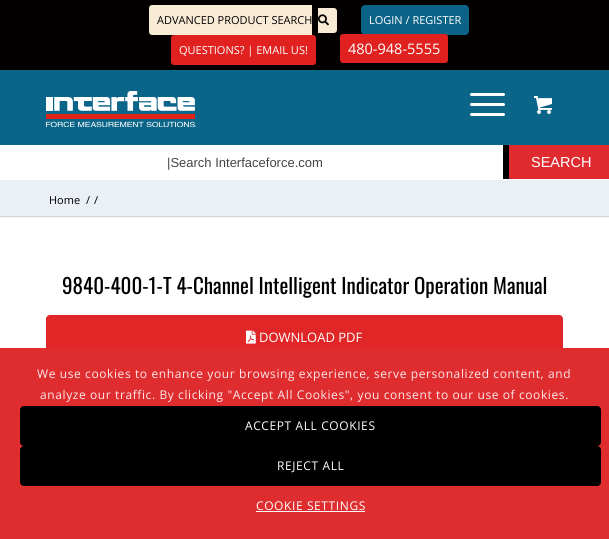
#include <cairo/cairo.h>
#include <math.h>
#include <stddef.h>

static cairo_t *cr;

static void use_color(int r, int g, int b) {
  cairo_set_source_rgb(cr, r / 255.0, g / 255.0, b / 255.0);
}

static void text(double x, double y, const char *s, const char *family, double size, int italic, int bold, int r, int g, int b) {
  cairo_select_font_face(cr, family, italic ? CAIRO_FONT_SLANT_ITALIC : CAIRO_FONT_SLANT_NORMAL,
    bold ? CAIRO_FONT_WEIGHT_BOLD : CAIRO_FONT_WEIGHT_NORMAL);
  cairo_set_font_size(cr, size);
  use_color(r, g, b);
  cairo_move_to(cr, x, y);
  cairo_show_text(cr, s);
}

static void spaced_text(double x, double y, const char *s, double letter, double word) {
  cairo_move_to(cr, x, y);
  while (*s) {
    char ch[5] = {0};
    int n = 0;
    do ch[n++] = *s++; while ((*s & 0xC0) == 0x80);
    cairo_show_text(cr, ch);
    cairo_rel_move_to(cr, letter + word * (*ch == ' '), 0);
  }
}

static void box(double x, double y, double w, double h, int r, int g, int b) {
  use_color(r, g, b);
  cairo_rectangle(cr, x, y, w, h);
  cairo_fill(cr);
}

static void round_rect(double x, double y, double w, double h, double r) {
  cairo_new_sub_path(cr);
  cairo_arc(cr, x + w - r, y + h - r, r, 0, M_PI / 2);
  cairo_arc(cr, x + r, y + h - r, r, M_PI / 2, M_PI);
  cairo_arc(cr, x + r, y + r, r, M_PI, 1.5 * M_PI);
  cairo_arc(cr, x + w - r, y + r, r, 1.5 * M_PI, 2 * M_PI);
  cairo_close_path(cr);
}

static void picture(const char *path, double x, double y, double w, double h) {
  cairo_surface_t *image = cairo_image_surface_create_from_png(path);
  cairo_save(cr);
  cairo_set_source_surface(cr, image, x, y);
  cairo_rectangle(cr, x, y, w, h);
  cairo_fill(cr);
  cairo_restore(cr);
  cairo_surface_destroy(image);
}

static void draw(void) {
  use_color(0, 0, 0);
  cairo_paint(cr);
  box(0, 0, 609, 70, 5, 0, 0);
  use_color(250, 235, 215);
  cairo_new_path(cr);
  cairo_move_to(cr, 152, 5);
  cairo_line_to(cr, 312, 5);
  cairo_line_to(cr, 312, 35);
  cairo_line_to(cr, 152, 35);
  cairo_curve_to(cr, 150.5, 35, 149, 33.5, 149, 32);
  cairo_line_to(cr, 149, 8);
  cairo_curve_to(cr, 149, 6.5, 150.5, 5, 152, 5);
  cairo_close_path(cr);
  cairo_fill(cr);
  cairo_new_path(cr);
  cairo_move_to(cr, 318, 8);
  cairo_line_to(cr, 334, 8);
  cairo_curve_to(cr, 335.5, 8, 337, 9.5, 337, 11);
  cairo_line_to(cr, 337, 30);
  cairo_curve_to(cr, 337, 31.5, 335.5, 33, 334, 33);
  cairo_line_to(cr, 318, 33);
  cairo_close_path(cr);
  cairo_fill(cr);
  picture("img_01.png", 318, 14, 11, 12);
  use_color(11, 100, 136);
  round_rect(361, 5, 108, 30, 4);
  cairo_fill(cr);
  use_color(224, 33, 32);
  round_rect(171, 35, 145, 30, 3);
  cairo_fill(cr);
  round_rect(340, 34, 108, 29, 3);
  cairo_fill(cr);
  box(0, 70, 609, 75, 11, 101, 136);
  picture("img_02.png", 46, 91, 150, 36);
  use_color(255, 255, 255);
  round_rect(470, 103, 35, 3, 1.5);
  cairo_fill(cr);
  round_rect(470, 93, 35, 3, 1.5);
  cairo_fill(cr);
  round_rect(470, 113, 35, 3, 1.5);
  cairo_fill(cr);
  picture("img_03.png", 534, 96, 18, 18);
  box(0, 145, 503, 34, 255, 255, 255);
  box(509, 145, 100, 34, 223, 43, 47);
  box(0, 180, 609, 36, 234, 240, 246);
  box(0, 179, 609, 1, 255, 255, 255);
  box(0, 216, 609, 1, 216, 215, 215);
  box(0, 218, 609, 130, 255, 255, 255);
  box(0, 217, 609, 1, 244, 244, 244);
  use_color(224, 38, 38);
  round_rect(46, 315, 517, 44, 4);
  cairo_fill(cr);
  picture("img_04.png", 246, 330, 10, 14);
  box(0, 348, 609, 191, 223, 44, 47);
  use_color(0, 0, 0);
  round_rect(20.5, 406.5, 580, 39, 3.5);
  cairo_fill_preserve(cr);
  cairo_set_line_width(cr, 1);
  cairo_stroke(cr);
  round_rect(20.5, 446.5, 580, 39, 3.5);
  cairo_fill_preserve(cr);
  cairo_stroke(cr);
  box(256, 511, 109, 1, 255, 255, 255);
  text(157, 24, "ADVANCED PRODUCT SEARCH", "Open Sans", 11, 0, 0, 0, 0, 0);
  text(369, 24, "LOGIN / REGISTER", "Open Sans", 11, 0, 0, 255, 255, 255);
  text(179, 54, "QUESTIONS? | EMAIL US!", "Open Sans", 11, 0, 0, 255, 255, 255);
  text(348, 54, "480-948-5555", "Open Sans", 14.5, 0, 0, 255, 255, 255);
  text(167, 167, "|Search Interfaceforce.com", "Liberation Sans", 13, 0, 0, 68, 68, 68);
  text(531, 167, "SEARCH", "Liberation Sans", 14.5, 0, 0, 255, 255, 255);
  text(49, 204, "Home", "Open Sans", 11, 0, 0, 0, 0, 0);
  text(86, 204, "/", "Open Sans", 11, 0, 0, 0, 0, 0);
  text(94, 204, "/", "Open Sans", 11, 0, 0, 0, 0, 0);
  text(62, 294, "9840-400-1-T 4-Channel Intelligent Indicator Operation Manual", "Oswald", 21, 0, 0, 0, 0, 0);
  text(259, 342, "DOWNLOAD PDF", "Open Sans", 13, 0, 0, 255, 255, 255);
  cairo_set_font_size(cr, 12);
  use_color(252, 234, 234);
  spaced_text(37, 378, "We use cookies to enhance your browsing experience, serve personalized content, and", 0.6, 0);
  spaced_text(40, 399, "analyze our traffic. By clicking \"Accept All Cookies\", you consent to our use of cookies.", 0.6, 0);
  use_color(255, 255, 255);
  spaced_text(245, 430, "ACCEPT ALL COOKIES", 0.6, 0);
  spaced_text(277, 470, "REJECT ALL", 0.6, 0);
  spaced_text(256, 510, "COOKIE SETTINGS", 0.6, 0);
}

int main(void) {
  cairo_surface_t *surface = cairo_image_surface_create(CAIRO_FORMAT_RGB24, 609, 539);
  cr = cairo_create(surface);
  cairo_font_options_t *options = cairo_font_options_create();
  cairo_font_options_set_hint_metrics(options, CAIRO_HINT_METRICS_OFF);
  cairo_font_options_set_hint_style(options, CAIRO_HINT_STYLE_NONE);
  cairo_set_font_options(cr, options);
  cairo_set_miter_limit(cr, 4);
  draw();
  cairo_surface_write_to_png(surface, "out.png");
  cairo_font_options_destroy(options);
  cairo_destroy(cr);
  cairo_surface_destroy(surface);
  return 0;
}
